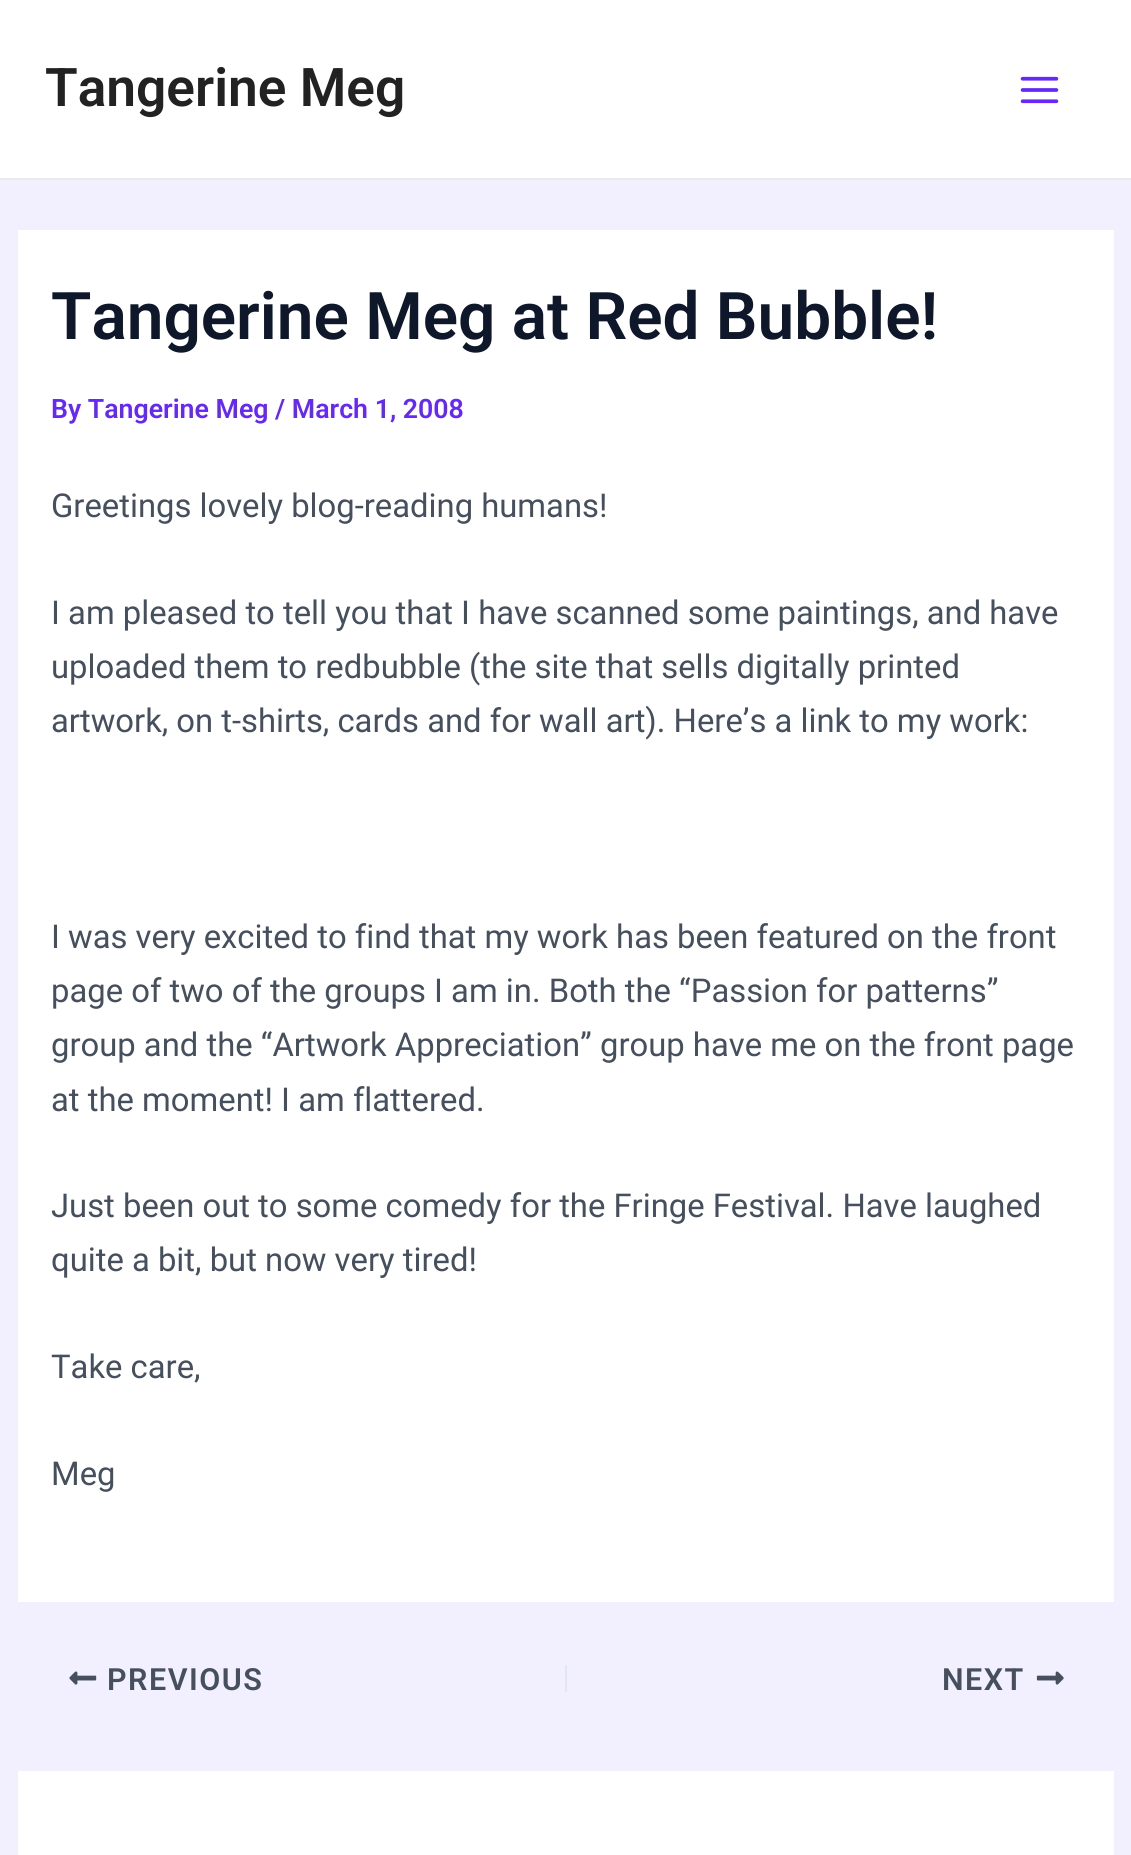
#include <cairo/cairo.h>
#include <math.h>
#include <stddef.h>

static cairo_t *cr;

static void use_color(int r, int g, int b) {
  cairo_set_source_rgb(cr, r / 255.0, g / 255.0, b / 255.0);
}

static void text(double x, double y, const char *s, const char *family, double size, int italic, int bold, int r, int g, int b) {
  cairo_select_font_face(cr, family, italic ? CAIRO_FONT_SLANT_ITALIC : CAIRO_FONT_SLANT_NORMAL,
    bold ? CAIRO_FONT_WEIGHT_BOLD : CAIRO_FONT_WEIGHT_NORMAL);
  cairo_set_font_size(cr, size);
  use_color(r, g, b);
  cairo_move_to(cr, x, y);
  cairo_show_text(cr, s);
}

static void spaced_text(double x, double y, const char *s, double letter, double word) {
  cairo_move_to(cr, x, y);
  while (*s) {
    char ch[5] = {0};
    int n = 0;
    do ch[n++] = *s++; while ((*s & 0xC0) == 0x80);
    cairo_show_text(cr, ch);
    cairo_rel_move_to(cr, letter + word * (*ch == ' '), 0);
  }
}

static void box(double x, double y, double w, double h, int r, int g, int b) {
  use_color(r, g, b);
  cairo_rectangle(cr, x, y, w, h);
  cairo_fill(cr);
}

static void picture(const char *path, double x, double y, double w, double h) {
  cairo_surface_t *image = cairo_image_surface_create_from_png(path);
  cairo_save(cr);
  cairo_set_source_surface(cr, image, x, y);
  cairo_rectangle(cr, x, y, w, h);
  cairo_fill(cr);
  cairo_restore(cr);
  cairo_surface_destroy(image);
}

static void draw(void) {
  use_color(242, 240, 254);
  cairo_paint(cr);
  box(0, 0, 1131, 178, 255, 255, 255);
  box(0, 178, 1131, 2, 234, 234, 234);
  picture("img_01.png", 1020, 76, 39, 28);
  box(18, 230, 1096, 1372, 255, 255, 255);
  picture("img_02.png", 69, 1671, 28, 14);
  box(565, 1665, 2, 27, 225, 232, 237);
  picture("img_03.png", 1036, 1671, 28, 14);
  box(18, 1771, 1096, 84, 255, 255, 255);
  text(45, 106, "Tangerine Meg", "Roboto SemiBold", 53.25, 0, 0, 34, 34, 34);
  text(51, 339, "Tangerine Meg at Red Bubble!", "Roboto SemiBold", 65.7, 0, 0, 15, 23, 42);
  text(51, 418, "By Tangerine Meg / March 1, 2008", "Roboto SemiBold", 26.7, 0, 0, 101, 40, 247);
  text(51, 517, "Greetings lovely blog-reading humans!", "Roboto", 32.8, 0, 0, 69, 79, 94);
  text(51, 624, "I am pleased to tell you that I have scanned some paintings, and have", "Roboto", 32.8, 0, 0, 69, 79, 94);
  text(51, 678, "uploaded them to redbubble (the site that sells digitally printed", "Roboto", 32.8, 0, 0, 69, 79, 94);
  text(51, 732, "artwork, on t-shirts, cards and for wall art). Here’s a link to my work:", "Roboto", 32.8, 0, 0, 69, 79, 94);
  text(51, 948, "I was very excited to find that my work has been featured on the front", "Roboto", 32.8, 0, 0, 69, 79, 94);
  text(51, 1002, "page of two of the groups I am in. Both the “Passion for patterns”", "Roboto", 32.8, 0, 0, 69, 79, 94);
  text(51, 1056, "group and the “Artwork Appreciation” group have me on the front page", "Roboto", 32.8, 0, 0, 69, 79, 94);
  text(51, 1111, "at the moment! I am flattered.", "Roboto", 32.8, 0, 0, 69, 79, 94);
  text(51, 1217, "Just been out to some comedy for the Fringe Festival. Have laughed", "Roboto", 32.8, 0, 0, 69, 79, 94);
  text(51, 1271, "quite a bit, but now very tired!", "Roboto", 32.8, 0, 0, 69, 79, 94);
  text(51, 1378, "Take care,", "Roboto", 32.8, 0, 0, 69, 79, 94);
  text(51, 1485, "Meg", "Roboto", 32.8, 0, 0, 69, 79, 94);
  cairo_select_font_face(cr, "Roboto SemiBold", CAIRO_FONT_SLANT_NORMAL, CAIRO_FONT_WEIGHT_NORMAL);
  cairo_set_font_size(cr, 30.5);
  spaced_text(107, 1690, "PREVIOUS", 1.5, 0);
  spaced_text(942, 1690, "NEXT", 1.5, 0);
}

int main(void) {
  cairo_surface_t *surface = cairo_image_surface_create(CAIRO_FORMAT_RGB24, 1131, 1855);
  cr = cairo_create(surface);
  cairo_font_options_t *options = cairo_font_options_create();
  cairo_font_options_set_hint_metrics(options, CAIRO_HINT_METRICS_OFF);
  cairo_font_options_set_hint_style(options, CAIRO_HINT_STYLE_NONE);
  cairo_set_font_options(cr, options);
  cairo_set_miter_limit(cr, 4);
  draw();
  cairo_surface_write_to_png(surface, "out.png");
  cairo_font_options_destroy(options);
  cairo_destroy(cr);
  cairo_surface_destroy(surface);
  return 0;
}
